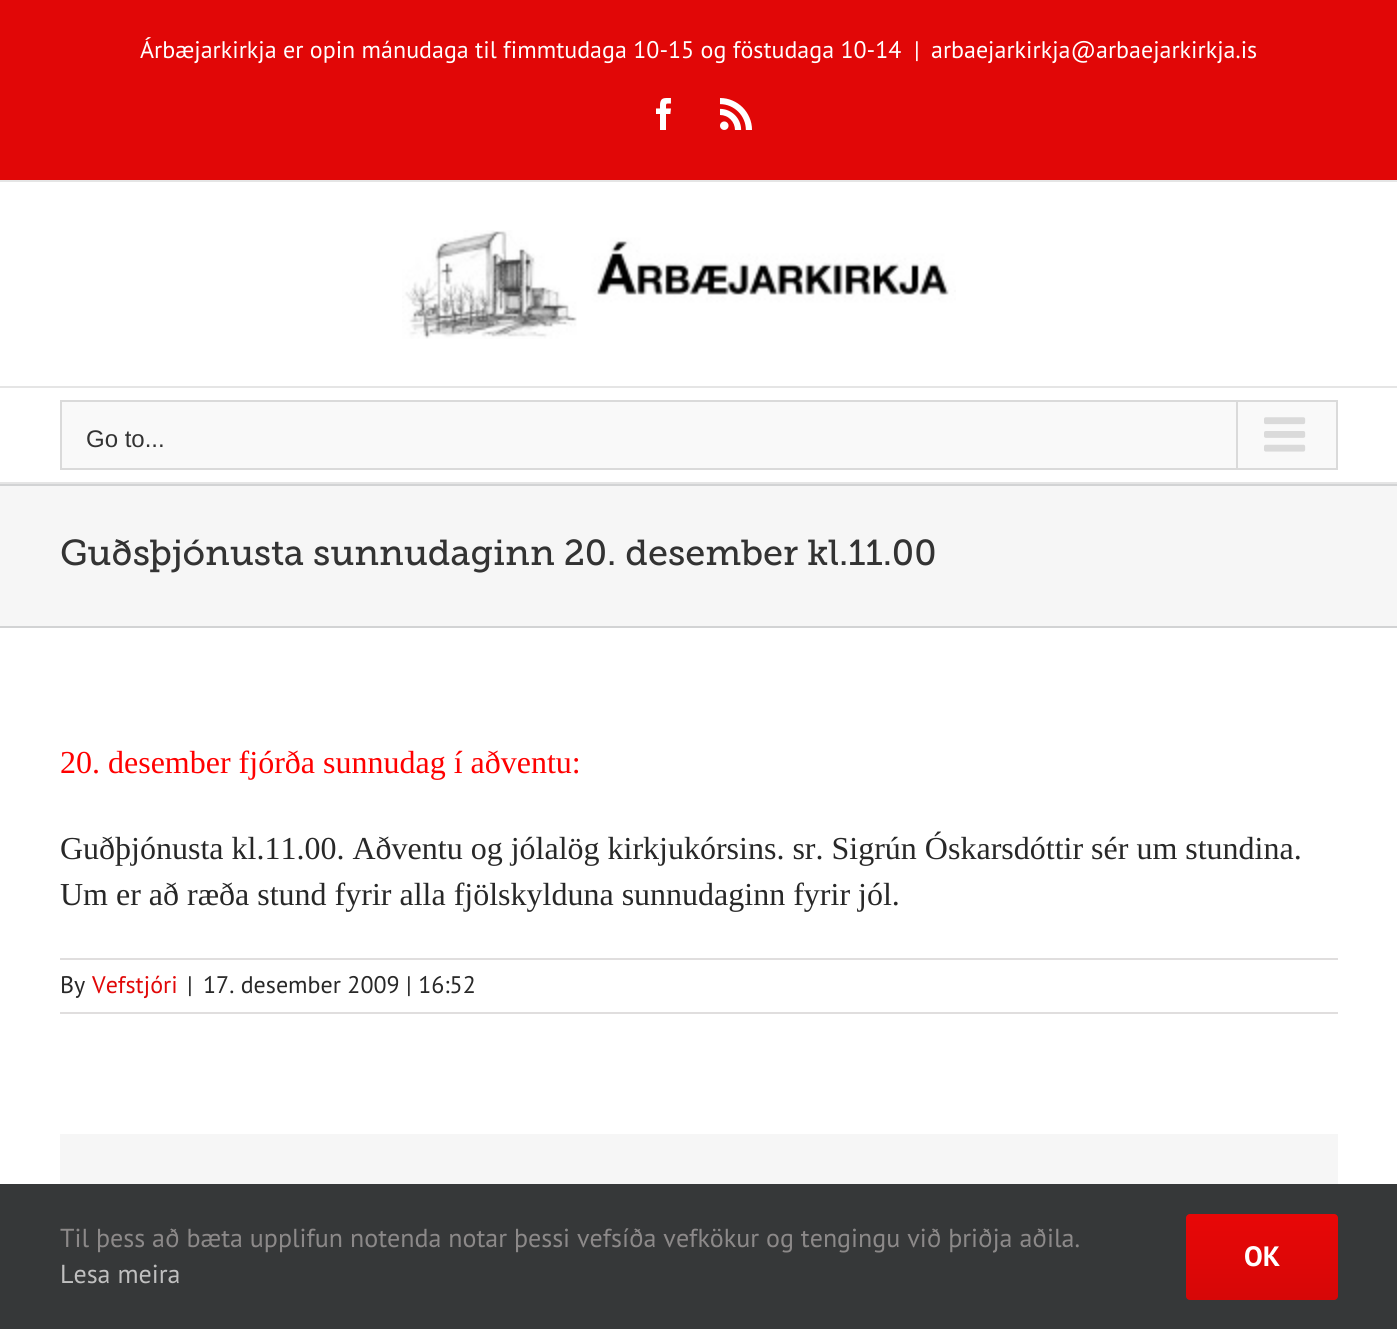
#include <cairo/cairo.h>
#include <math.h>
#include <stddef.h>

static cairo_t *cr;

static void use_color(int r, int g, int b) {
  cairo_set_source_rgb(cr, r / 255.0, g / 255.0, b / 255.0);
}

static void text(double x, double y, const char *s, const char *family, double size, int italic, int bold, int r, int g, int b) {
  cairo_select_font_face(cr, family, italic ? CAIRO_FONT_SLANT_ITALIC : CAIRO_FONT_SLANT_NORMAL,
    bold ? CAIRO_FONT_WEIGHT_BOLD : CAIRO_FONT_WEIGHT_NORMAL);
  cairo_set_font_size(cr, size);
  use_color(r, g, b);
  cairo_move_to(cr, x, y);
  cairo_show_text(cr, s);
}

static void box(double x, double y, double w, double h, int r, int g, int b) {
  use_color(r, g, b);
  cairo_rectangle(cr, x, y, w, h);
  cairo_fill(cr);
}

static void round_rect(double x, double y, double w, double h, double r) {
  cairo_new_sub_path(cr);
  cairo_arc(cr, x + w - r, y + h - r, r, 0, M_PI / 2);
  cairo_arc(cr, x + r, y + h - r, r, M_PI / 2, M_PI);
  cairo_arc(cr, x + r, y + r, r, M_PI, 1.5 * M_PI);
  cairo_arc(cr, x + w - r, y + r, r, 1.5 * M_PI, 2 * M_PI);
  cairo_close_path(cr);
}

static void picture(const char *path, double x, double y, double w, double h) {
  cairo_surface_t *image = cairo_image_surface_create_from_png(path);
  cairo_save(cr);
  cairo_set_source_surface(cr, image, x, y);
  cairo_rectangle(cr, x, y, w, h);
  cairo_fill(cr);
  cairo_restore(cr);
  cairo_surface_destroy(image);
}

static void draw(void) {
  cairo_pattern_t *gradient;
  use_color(255, 255, 255);
  cairo_paint(cr);
  box(0, 0, 1397, 180, 225, 7, 7);
  box(0, 180, 1397, 2, 229, 229, 229);
  picture("img_01.png", 656, 98, 15, 32);
  picture("img_02.png", 720, 98, 32, 32);
  box(0, 386, 1397, 2, 229, 229, 229);
  picture("img_03.png", 402, 230, 554, 109);
  box(0, 482, 1397, 2, 229, 229, 229);
  use_color(249, 249, 249);
  cairo_rectangle(cr, 61, 401, 1276, 68);
  cairo_fill_preserve(cr);
  use_color(218, 218, 218);
  cairo_stroke(cr);
  box(1236, 402, 2, 66, 218, 218, 218);
  picture("img_04.png", 1264, 417, 42, 35);
  box(0, 486, 1397, 140, 246, 246, 246);
  box(0, 484, 1397, 2, 210, 211, 212);
  box(0, 626, 1397, 2, 210, 211, 212);
  box(60, 958, 1278, 2, 224, 222, 222);
  box(60, 1012, 1278, 2, 224, 222, 222);
  box(60, 1134, 1278, 50, 246, 246, 246);
  box(0, 1184, 1397, 145, 54, 56, 57);
  gradient = cairo_pattern_create_linear(1262, 1214, 1262, 1300);
  cairo_pattern_add_color_stop_rgba(gradient, 0, 0.91, 0.027, 0.027, 1);
  cairo_pattern_add_color_stop_rgba(gradient, 1, 0.839, 0.027, 0.027, 1);
  cairo_set_source(cr, gradient);
  cairo_pattern_destroy(gradient);
  round_rect(1186, 1214, 152, 86, 4);
  cairo_fill(cr);
  text(140, 58, "Árbæjarkirkja er opin mánudaga til fimmtudaga 10-15 og föstudaga 10-14", "PT Sans", 24, 0, 0, 255, 255, 255);
  text(914, 58, "|", "PT Sans", 24, 0, 0, 255, 255, 255);
  text(931, 58, "arbaejarkirkja@arbaejarkirkja.is", "PT Sans", 24, 0, 0, 255, 255, 255);
  text(86, 447, "Go to...", "Liberation Sans", 24, 0, 0, 51, 51, 51);
  text(60, 565, "Guðsþjónusta sunnudaginn 20. desember kl.11.00", "Museo Slab", 36, 0, 0, 51, 51, 51);
  text(60, 773, "20. desember fjórða sunnudag í aðventu:", "Liberation Serif", 32, 0, 0, 255, 0, 0);
  text(60, 859, "Guðþjónusta kl.11.00. Aðventu og jólalög kirkjukórsins. sr. Sigrún Óskarsdóttir sér um stundina.", "Liberation Serif", 32, 0, 0, 40, 40, 40);
  text(60, 905, "Um er að ræða stund fyrir alla fjölskylduna sunnudaginn fyrir jól.", "Liberation Serif", 32, 0, 0, 40, 40, 40);
  text(60, 993, "By", "PT Sans", 24, 0, 0, 40, 40, 40);
  text(92, 993, "Vefstjóri", "PT Sans", 24, 0, 0, 225, 7, 7);
  text(187, 993, "|", "PT Sans", 24, 0, 0, 40, 40, 40);
  text(203, 993, "17. desember 2009 | 16:52", "PT Sans", 24, 0, 0, 40, 40, 40);
  text(60, 1247, "Til þess að bæta upplifun notenda notar þessi vefsíða vefkökur og tengingu við þriðja aðila.", "PT Sans", 26, 0, 0, 140, 137, 137);
  text(60, 1283, "Lesa meira", "PT Sans", 26, 0, 0, 191, 191, 191);
  text(1244, 1266, "OK", "PT Sans", 28, 0, 1, 255, 255, 255);
}

int main(void) {
  cairo_surface_t *surface = cairo_image_surface_create(CAIRO_FORMAT_RGB24, 1397, 1329);
  cr = cairo_create(surface);
  cairo_font_options_t *options = cairo_font_options_create();
  cairo_font_options_set_hint_metrics(options, CAIRO_HINT_METRICS_OFF);
  cairo_font_options_set_hint_style(options, CAIRO_HINT_STYLE_NONE);
  cairo_set_font_options(cr, options);
  cairo_set_miter_limit(cr, 4);
  draw();
  cairo_surface_write_to_png(surface, "out.png");
  cairo_font_options_destroy(options);
  cairo_destroy(cr);
  cairo_surface_destroy(surface);
  return 0;
}
